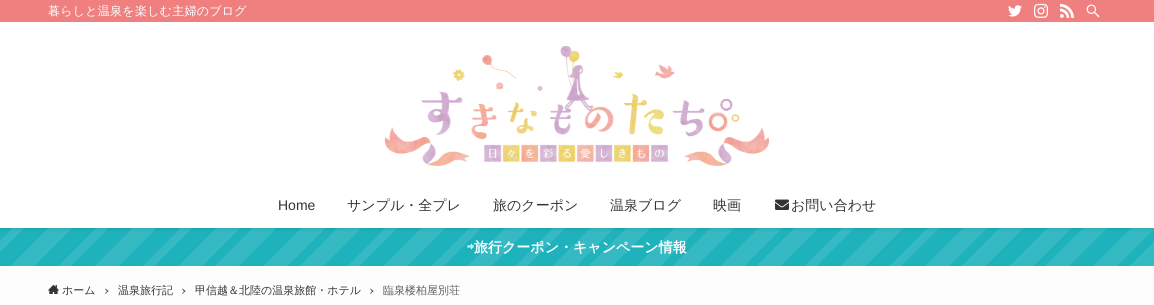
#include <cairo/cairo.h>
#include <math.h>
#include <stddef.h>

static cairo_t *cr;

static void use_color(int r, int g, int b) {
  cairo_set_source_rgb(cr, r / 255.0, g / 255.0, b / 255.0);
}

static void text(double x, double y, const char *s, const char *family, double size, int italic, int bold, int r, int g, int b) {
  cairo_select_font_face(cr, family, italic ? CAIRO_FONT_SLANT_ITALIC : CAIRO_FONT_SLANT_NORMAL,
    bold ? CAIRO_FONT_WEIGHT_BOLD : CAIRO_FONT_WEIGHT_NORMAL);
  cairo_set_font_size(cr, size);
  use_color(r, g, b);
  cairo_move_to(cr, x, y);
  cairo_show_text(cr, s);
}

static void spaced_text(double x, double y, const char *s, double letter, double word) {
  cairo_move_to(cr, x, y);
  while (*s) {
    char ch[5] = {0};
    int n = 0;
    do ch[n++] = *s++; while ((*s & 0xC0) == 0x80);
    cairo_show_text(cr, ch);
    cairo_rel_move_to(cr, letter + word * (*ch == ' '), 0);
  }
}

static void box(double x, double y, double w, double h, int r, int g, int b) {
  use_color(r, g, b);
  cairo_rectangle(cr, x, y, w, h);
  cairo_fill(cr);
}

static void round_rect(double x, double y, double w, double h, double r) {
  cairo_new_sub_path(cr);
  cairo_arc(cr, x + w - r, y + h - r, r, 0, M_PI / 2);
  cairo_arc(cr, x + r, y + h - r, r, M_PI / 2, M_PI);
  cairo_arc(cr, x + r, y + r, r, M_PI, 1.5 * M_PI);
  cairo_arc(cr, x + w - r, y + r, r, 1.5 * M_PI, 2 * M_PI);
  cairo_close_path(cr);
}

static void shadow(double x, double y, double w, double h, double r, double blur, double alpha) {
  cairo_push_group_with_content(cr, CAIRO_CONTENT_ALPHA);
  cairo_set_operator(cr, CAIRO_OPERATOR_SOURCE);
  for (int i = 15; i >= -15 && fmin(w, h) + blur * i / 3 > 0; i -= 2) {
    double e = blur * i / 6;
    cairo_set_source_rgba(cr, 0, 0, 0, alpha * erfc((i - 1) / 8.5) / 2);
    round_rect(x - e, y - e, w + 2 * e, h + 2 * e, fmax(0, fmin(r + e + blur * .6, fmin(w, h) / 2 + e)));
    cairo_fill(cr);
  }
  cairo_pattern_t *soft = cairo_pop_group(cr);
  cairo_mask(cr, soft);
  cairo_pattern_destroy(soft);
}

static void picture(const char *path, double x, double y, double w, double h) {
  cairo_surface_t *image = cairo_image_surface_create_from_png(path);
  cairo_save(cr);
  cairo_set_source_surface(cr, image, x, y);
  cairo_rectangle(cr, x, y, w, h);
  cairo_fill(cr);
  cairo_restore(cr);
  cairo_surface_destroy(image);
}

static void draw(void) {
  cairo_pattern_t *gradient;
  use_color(253, 253, 253);
  cairo_paint(cr);
  gradient = cairo_pattern_create_linear(875, 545, 273, -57);
  cairo_pattern_add_color_stop_rgba(gradient, 0, 0.208, 0.729, 0.765, 1);
  cairo_pattern_add_color_stop_rgba(gradient, 0.01, 0.208, 0.729, 0.765, 1);
  cairo_pattern_add_color_stop_rgba(gradient, 0.01, 0.118, 0.698, 0.737, 1);
  cairo_pattern_add_color_stop_rgba(gradient, 0.01, 0.208, 0.729, 0.765, 1);
  cairo_pattern_add_color_stop_rgba(gradient, 0.02, 0.208, 0.729, 0.765, 1);
  cairo_pattern_add_color_stop_rgba(gradient, 0.02, 0.118, 0.698, 0.737, 1);
  cairo_pattern_add_color_stop_rgba(gradient, 0.03, 0.118, 0.698, 0.737, 1);
  cairo_pattern_add_color_stop_rgba(gradient, 0.03, 0.208, 0.729, 0.765, 1);
  cairo_pattern_add_color_stop_rgba(gradient, 0.04, 0.208, 0.729, 0.765, 1);
  cairo_pattern_add_color_stop_rgba(gradient, 0.04, 0.118, 0.698, 0.737, 1);
  cairo_pattern_add_color_stop_rgba(gradient, 0.04, 0.208, 0.729, 0.765, 1);
  cairo_pattern_add_color_stop_rgba(gradient, 0.05, 0.208, 0.729, 0.765, 1);
  cairo_pattern_add_color_stop_rgba(gradient, 0.05, 0.118, 0.698, 0.737, 1);
  cairo_pattern_add_color_stop_rgba(gradient, 0.06, 0.118, 0.698, 0.737, 1);
  cairo_pattern_add_color_stop_rgba(gradient, 0.06, 0.208, 0.729, 0.765, 1);
  cairo_pattern_add_color_stop_rgba(gradient, 0.06, 0.118, 0.698, 0.737, 1);
  cairo_pattern_add_color_stop_rgba(gradient, 0.07, 0.118, 0.698, 0.737, 1);
  cairo_pattern_add_color_stop_rgba(gradient, 0.07, 0.208, 0.729, 0.765, 1);
  cairo_pattern_add_color_stop_rgba(gradient, 0.08, 0.208, 0.729, 0.765, 1);
  cairo_pattern_add_color_stop_rgba(gradient, 0.08, 0.118, 0.698, 0.737, 1);
  cairo_pattern_add_color_stop_rgba(gradient, 0.08, 0.208, 0.729, 0.765, 1);
  cairo_pattern_add_color_stop_rgba(gradient, 0.09, 0.208, 0.729, 0.765, 1);
  cairo_pattern_add_color_stop_rgba(gradient, 0.09, 0.118, 0.698, 0.737, 1);
  cairo_pattern_add_color_stop_rgba(gradient, 0.1, 0.118, 0.698, 0.737, 1);
  cairo_pattern_add_color_stop_rgba(gradient, 0.1, 0.208, 0.729, 0.765, 1);
  cairo_pattern_add_color_stop_rgba(gradient, 0.11, 0.208, 0.729, 0.765, 1);
  cairo_pattern_add_color_stop_rgba(gradient, 0.11, 0.118, 0.698, 0.737, 1);
  cairo_pattern_add_color_stop_rgba(gradient, 0.11, 0.208, 0.729, 0.765, 1);
  cairo_pattern_add_color_stop_rgba(gradient, 0.12, 0.208, 0.729, 0.765, 1);
  cairo_pattern_add_color_stop_rgba(gradient, 0.12, 0.118, 0.698, 0.737, 1);
  cairo_pattern_add_color_stop_rgba(gradient, 0.13, 0.118, 0.698, 0.737, 1);
  cairo_pattern_add_color_stop_rgba(gradient, 0.13, 0.208, 0.729, 0.765, 1);
  cairo_pattern_add_color_stop_rgba(gradient, 0.13, 0.118, 0.698, 0.737, 1);
  cairo_pattern_add_color_stop_rgba(gradient, 0.14, 0.118, 0.698, 0.737, 1);
  cairo_pattern_add_color_stop_rgba(gradient, 0.14, 0.208, 0.729, 0.765, 1);
  cairo_pattern_add_color_stop_rgba(gradient, 0.15, 0.208, 0.729, 0.765, 1);
  cairo_pattern_add_color_stop_rgba(gradient, 0.15, 0.118, 0.698, 0.737, 1);
  cairo_pattern_add_color_stop_rgba(gradient, 0.15, 0.208, 0.729, 0.765, 1);
  cairo_pattern_add_color_stop_rgba(gradient, 0.16, 0.208, 0.729, 0.765, 1);
  cairo_pattern_add_color_stop_rgba(gradient, 0.16, 0.118, 0.698, 0.737, 1);
  cairo_pattern_add_color_stop_rgba(gradient, 0.17, 0.118, 0.698, 0.737, 1);
  cairo_pattern_add_color_stop_rgba(gradient, 0.17, 0.208, 0.729, 0.765, 1);
  cairo_pattern_add_color_stop_rgba(gradient, 0.18, 0.208, 0.729, 0.765, 1);
  cairo_pattern_add_color_stop_rgba(gradient, 0.18, 0.118, 0.698, 0.737, 1);
  cairo_pattern_add_color_stop_rgba(gradient, 0.18, 0.208, 0.729, 0.765, 1);
  cairo_pattern_add_color_stop_rgba(gradient, 0.19, 0.208, 0.729, 0.765, 1);
  cairo_pattern_add_color_stop_rgba(gradient, 0.19, 0.118, 0.698, 0.737, 1);
  cairo_pattern_add_color_stop_rgba(gradient, 0.2, 0.118, 0.698, 0.737, 1);
  cairo_pattern_add_color_stop_rgba(gradient, 0.2, 0.208, 0.729, 0.765, 1);
  cairo_pattern_add_color_stop_rgba(gradient, 0.2, 0.118, 0.698, 0.737, 1);
  cairo_pattern_add_color_stop_rgba(gradient, 0.21, 0.118, 0.698, 0.737, 1);
  cairo_pattern_add_color_stop_rgba(gradient, 0.21, 0.208, 0.729, 0.765, 1);
  cairo_pattern_add_color_stop_rgba(gradient, 0.22, 0.208, 0.729, 0.765, 1);
  cairo_pattern_add_color_stop_rgba(gradient, 0.22, 0.118, 0.698, 0.737, 1);
  cairo_pattern_add_color_stop_rgba(gradient, 0.23, 0.118, 0.698, 0.737, 1);
  cairo_pattern_add_color_stop_rgba(gradient, 0.23, 0.208, 0.729, 0.765, 1);
  cairo_pattern_add_color_stop_rgba(gradient, 0.23, 0.118, 0.698, 0.737, 1);
  cairo_pattern_add_color_stop_rgba(gradient, 0.24, 0.118, 0.698, 0.737, 1);
  cairo_pattern_add_color_stop_rgba(gradient, 0.24, 0.208, 0.729, 0.765, 1);
  cairo_pattern_add_color_stop_rgba(gradient, 0.25, 0.208, 0.729, 0.765, 1);
  cairo_pattern_add_color_stop_rgba(gradient, 0.25, 0.118, 0.698, 0.737, 1);
  cairo_pattern_add_color_stop_rgba(gradient, 0.25, 0.208, 0.729, 0.765, 1);
  cairo_pattern_add_color_stop_rgba(gradient, 0.26, 0.208, 0.729, 0.765, 1);
  cairo_pattern_add_color_stop_rgba(gradient, 0.26, 0.118, 0.698, 0.737, 1);
  cairo_pattern_add_color_stop_rgba(gradient, 0.27, 0.118, 0.698, 0.737, 1);
  cairo_pattern_add_color_stop_rgba(gradient, 0.27, 0.208, 0.729, 0.765, 1);
  cairo_pattern_add_color_stop_rgba(gradient, 0.27, 0.118, 0.698, 0.737, 1);
  cairo_pattern_add_color_stop_rgba(gradient, 0.28, 0.118, 0.698, 0.737, 1);
  cairo_pattern_add_color_stop_rgba(gradient, 0.28, 0.208, 0.729, 0.765, 1);
  cairo_pattern_add_color_stop_rgba(gradient, 0.29, 0.208, 0.729, 0.765, 1);
  cairo_pattern_add_color_stop_rgba(gradient, 0.29, 0.118, 0.698, 0.737, 1);
  cairo_pattern_add_color_stop_rgba(gradient, 0.3, 0.118, 0.698, 0.737, 1);
  cairo_pattern_add_color_stop_rgba(gradient, 0.3, 0.208, 0.729, 0.765, 1);
  cairo_pattern_add_color_stop_rgba(gradient, 0.3, 0.118, 0.698, 0.737, 1);
  cairo_pattern_add_color_stop_rgba(gradient, 0.31, 0.118, 0.698, 0.737, 1);
  cairo_pattern_add_color_stop_rgba(gradient, 0.31, 0.208, 0.729, 0.765, 1);
  cairo_pattern_add_color_stop_rgba(gradient, 0.32, 0.208, 0.729, 0.765, 1);
  cairo_pattern_add_color_stop_rgba(gradient, 0.32, 0.118, 0.698, 0.737, 1);
  cairo_pattern_add_color_stop_rgba(gradient, 0.32, 0.208, 0.729, 0.765, 1);
  cairo_pattern_add_color_stop_rgba(gradient, 0.33, 0.208, 0.729, 0.765, 1);
  cairo_pattern_add_color_stop_rgba(gradient, 0.33, 0.118, 0.698, 0.737, 1);
  cairo_pattern_add_color_stop_rgba(gradient, 0.34, 0.118, 0.698, 0.737, 1);
  cairo_pattern_add_color_stop_rgba(gradient, 0.34, 0.208, 0.729, 0.765, 1);
  cairo_pattern_add_color_stop_rgba(gradient, 0.35, 0.208, 0.729, 0.765, 1);
  cairo_pattern_add_color_stop_rgba(gradient, 0.35, 0.118, 0.698, 0.737, 1);
  cairo_pattern_add_color_stop_rgba(gradient, 0.35, 0.208, 0.729, 0.765, 1);
  cairo_pattern_add_color_stop_rgba(gradient, 0.36, 0.208, 0.729, 0.765, 1);
  cairo_pattern_add_color_stop_rgba(gradient, 0.36, 0.118, 0.698, 0.737, 1);
  cairo_pattern_add_color_stop_rgba(gradient, 0.37, 0.118, 0.698, 0.737, 1);
  cairo_pattern_add_color_stop_rgba(gradient, 0.37, 0.208, 0.729, 0.765, 1);
  cairo_pattern_add_color_stop_rgba(gradient, 0.37, 0.118, 0.698, 0.737, 1);
  cairo_pattern_add_color_stop_rgba(gradient, 0.38, 0.118, 0.698, 0.737, 1);
  cairo_pattern_add_color_stop_rgba(gradient, 0.38, 0.208, 0.729, 0.765, 1);
  cairo_pattern_add_color_stop_rgba(gradient, 0.39, 0.208, 0.729, 0.765, 1);
  cairo_pattern_add_color_stop_rgba(gradient, 0.39, 0.118, 0.698, 0.737, 1);
  cairo_pattern_add_color_stop_rgba(gradient, 0.39, 0.208, 0.729, 0.765, 1);
  cairo_pattern_add_color_stop_rgba(gradient, 0.4, 0.208, 0.729, 0.765, 1);
  cairo_pattern_add_color_stop_rgba(gradient, 0.4, 0.118, 0.698, 0.737, 1);
  cairo_pattern_add_color_stop_rgba(gradient, 0.41, 0.118, 0.698, 0.737, 1);
  cairo_pattern_add_color_stop_rgba(gradient, 0.41, 0.208, 0.729, 0.765, 1);
  cairo_pattern_add_color_stop_rgba(gradient, 0.42, 0.208, 0.729, 0.765, 1);
  cairo_pattern_add_color_stop_rgba(gradient, 0.42, 0.118, 0.698, 0.737, 1);
  cairo_pattern_add_color_stop_rgba(gradient, 0.42, 0.208, 0.729, 0.765, 1);
  cairo_pattern_add_color_stop_rgba(gradient, 0.43, 0.208, 0.729, 0.765, 1);
  cairo_pattern_add_color_stop_rgba(gradient, 0.43, 0.118, 0.698, 0.737, 1);
  cairo_pattern_add_color_stop_rgba(gradient, 0.44, 0.118, 0.698, 0.737, 1);
  cairo_pattern_add_color_stop_rgba(gradient, 0.44, 0.208, 0.729, 0.765, 1);
  cairo_pattern_add_color_stop_rgba(gradient, 0.44, 0.118, 0.698, 0.737, 1);
  cairo_pattern_add_color_stop_rgba(gradient, 0.45, 0.118, 0.698, 0.737, 1);
  cairo_pattern_add_color_stop_rgba(gradient, 0.45, 0.208, 0.729, 0.765, 1);
  cairo_pattern_add_color_stop_rgba(gradient, 0.46, 0.208, 0.729, 0.765, 1);
  cairo_pattern_add_color_stop_rgba(gradient, 0.46, 0.118, 0.698, 0.737, 1);
  cairo_pattern_add_color_stop_rgba(gradient, 0.46, 0.208, 0.729, 0.765, 1);
  cairo_pattern_add_color_stop_rgba(gradient, 0.47, 0.208, 0.729, 0.765, 1);
  cairo_pattern_add_color_stop_rgba(gradient, 0.47, 0.118, 0.698, 0.737, 1);
  cairo_pattern_add_color_stop_rgba(gradient, 0.48, 0.118, 0.698, 0.737, 1);
  cairo_pattern_add_color_stop_rgba(gradient, 0.48, 0.208, 0.729, 0.765, 1);
  cairo_pattern_add_color_stop_rgba(gradient, 0.49, 0.208, 0.729, 0.765, 1);
  cairo_pattern_add_color_stop_rgba(gradient, 0.49, 0.118, 0.698, 0.737, 1);
  cairo_pattern_add_color_stop_rgba(gradient, 0.49, 0.208, 0.729, 0.765, 1);
  cairo_pattern_add_color_stop_rgba(gradient, 0.5, 0.208, 0.729, 0.765, 1);
  cairo_pattern_add_color_stop_rgba(gradient, 0.5, 0.118, 0.698, 0.737, 1);
  cairo_pattern_add_color_stop_rgba(gradient, 0.51, 0.118, 0.698, 0.737, 1);
  cairo_pattern_add_color_stop_rgba(gradient, 0.51, 0.208, 0.729, 0.765, 1);
  cairo_pattern_add_color_stop_rgba(gradient, 0.51, 0.118, 0.698, 0.737, 1);
  cairo_pattern_add_color_stop_rgba(gradient, 0.52, 0.118, 0.698, 0.737, 1);
  cairo_pattern_add_color_stop_rgba(gradient, 0.52, 0.208, 0.729, 0.765, 1);
  cairo_pattern_add_color_stop_rgba(gradient, 0.53, 0.208, 0.729, 0.765, 1);
  cairo_pattern_add_color_stop_rgba(gradient, 0.53, 0.118, 0.698, 0.737, 1);
  cairo_pattern_add_color_stop_rgba(gradient, 0.54, 0.118, 0.698, 0.737, 1);
  cairo_pattern_add_color_stop_rgba(gradient, 0.54, 0.208, 0.729, 0.765, 1);
  cairo_pattern_add_color_stop_rgba(gradient, 0.54, 0.118, 0.698, 0.737, 1);
  cairo_pattern_add_color_stop_rgba(gradient, 0.55, 0.118, 0.698, 0.737, 1);
  cairo_pattern_add_color_stop_rgba(gradient, 0.55, 0.208, 0.729, 0.765, 1);
  cairo_pattern_add_color_stop_rgba(gradient, 0.56, 0.208, 0.729, 0.765, 1);
  cairo_pattern_add_color_stop_rgba(gradient, 0.56, 0.118, 0.698, 0.737, 1);
  cairo_pattern_add_color_stop_rgba(gradient, 0.56, 0.208, 0.729, 0.765, 1);
  cairo_pattern_add_color_stop_rgba(gradient, 0.57, 0.208, 0.729, 0.765, 1);
  cairo_pattern_add_color_stop_rgba(gradient, 0.57, 0.118, 0.698, 0.737, 1);
  cairo_pattern_add_color_stop_rgba(gradient, 0.58, 0.118, 0.698, 0.737, 1);
  cairo_pattern_add_color_stop_rgba(gradient, 0.58, 0.208, 0.729, 0.765, 1);
  cairo_pattern_add_color_stop_rgba(gradient, 0.58, 0.118, 0.698, 0.737, 1);
  cairo_pattern_add_color_stop_rgba(gradient, 0.59, 0.118, 0.698, 0.737, 1);
  cairo_pattern_add_color_stop_rgba(gradient, 0.59, 0.208, 0.729, 0.765, 1);
  cairo_pattern_add_color_stop_rgba(gradient, 0.6, 0.208, 0.729, 0.765, 1);
  cairo_pattern_add_color_stop_rgba(gradient, 0.6, 0.118, 0.698, 0.737, 1);
  cairo_pattern_add_color_stop_rgba(gradient, 0.61, 0.118, 0.698, 0.737, 1);
  cairo_pattern_add_color_stop_rgba(gradient, 0.61, 0.208, 0.729, 0.765, 1);
  cairo_pattern_add_color_stop_rgba(gradient, 0.61, 0.118, 0.698, 0.737, 1);
  cairo_pattern_add_color_stop_rgba(gradient, 0.62, 0.118, 0.698, 0.737, 1);
  cairo_pattern_add_color_stop_rgba(gradient, 0.62, 0.208, 0.729, 0.765, 1);
  cairo_pattern_add_color_stop_rgba(gradient, 0.63, 0.208, 0.729, 0.765, 1);
  cairo_pattern_add_color_stop_rgba(gradient, 0.63, 0.118, 0.698, 0.737, 1);
  cairo_pattern_add_color_stop_rgba(gradient, 0.63, 0.208, 0.729, 0.765, 1);
  cairo_pattern_add_color_stop_rgba(gradient, 0.64, 0.208, 0.729, 0.765, 1);
  cairo_pattern_add_color_stop_rgba(gradient, 0.64, 0.118, 0.698, 0.737, 1);
  cairo_pattern_add_color_stop_rgba(gradient, 0.65, 0.118, 0.698, 0.737, 1);
  cairo_pattern_add_color_stop_rgba(gradient, 0.65, 0.208, 0.729, 0.765, 1);
  cairo_pattern_add_color_stop_rgba(gradient, 0.65, 0.118, 0.698, 0.737, 1);
  cairo_pattern_add_color_stop_rgba(gradient, 0.66, 0.118, 0.698, 0.737, 1);
  cairo_pattern_add_color_stop_rgba(gradient, 0.66, 0.208, 0.729, 0.765, 1);
  cairo_pattern_add_color_stop_rgba(gradient, 0.67, 0.208, 0.729, 0.765, 1);
  cairo_pattern_add_color_stop_rgba(gradient, 0.67, 0.118, 0.698, 0.737, 1);
  cairo_pattern_add_color_stop_rgba(gradient, 0.68, 0.118, 0.698, 0.737, 1);
  cairo_pattern_add_color_stop_rgba(gradient, 0.68, 0.208, 0.729, 0.765, 1);
  cairo_pattern_add_color_stop_rgba(gradient, 0.68, 0.118, 0.698, 0.737, 1);
  cairo_pattern_add_color_stop_rgba(gradient, 0.69, 0.118, 0.698, 0.737, 1);
  cairo_pattern_add_color_stop_rgba(gradient, 0.69, 0.208, 0.729, 0.765, 1);
  cairo_pattern_add_color_stop_rgba(gradient, 0.7, 0.208, 0.729, 0.765, 1);
  cairo_pattern_add_color_stop_rgba(gradient, 0.7, 0.118, 0.698, 0.737, 1);
  cairo_pattern_add_color_stop_rgba(gradient, 0.7, 0.208, 0.729, 0.765, 1);
  cairo_pattern_add_color_stop_rgba(gradient, 0.71, 0.208, 0.729, 0.765, 1);
  cairo_pattern_add_color_stop_rgba(gradient, 0.71, 0.118, 0.698, 0.737, 1);
  cairo_pattern_add_color_stop_rgba(gradient, 0.72, 0.118, 0.698, 0.737, 1);
  cairo_pattern_add_color_stop_rgba(gradient, 0.72, 0.208, 0.729, 0.765, 1);
  cairo_pattern_add_color_stop_rgba(gradient, 0.73, 0.208, 0.729, 0.765, 1);
  cairo_pattern_add_color_stop_rgba(gradient, 0.73, 0.118, 0.698, 0.737, 1);
  cairo_pattern_add_color_stop_rgba(gradient, 0.73, 0.208, 0.729, 0.765, 1);
  cairo_pattern_add_color_stop_rgba(gradient, 0.74, 0.208, 0.729, 0.765, 1);
  cairo_pattern_add_color_stop_rgba(gradient, 0.74, 0.118, 0.698, 0.737, 1);
  cairo_pattern_add_color_stop_rgba(gradient, 0.75, 0.118, 0.698, 0.737, 1);
  cairo_pattern_add_color_stop_rgba(gradient, 0.75, 0.208, 0.729, 0.765, 1);
  cairo_pattern_add_color_stop_rgba(gradient, 0.75, 0.118, 0.698, 0.737, 1);
  cairo_pattern_add_color_stop_rgba(gradient, 0.76, 0.118, 0.698, 0.737, 1);
  cairo_pattern_add_color_stop_rgba(gradient, 0.76, 0.208, 0.729, 0.765, 1);
  cairo_pattern_add_color_stop_rgba(gradient, 0.77, 0.208, 0.729, 0.765, 1);
  cairo_pattern_add_color_stop_rgba(gradient, 0.77, 0.118, 0.698, 0.737, 1);
  cairo_pattern_add_color_stop_rgba(gradient, 0.77, 0.208, 0.729, 0.765, 1);
  cairo_pattern_add_color_stop_rgba(gradient, 0.78, 0.208, 0.729, 0.765, 1);
  cairo_pattern_add_color_stop_rgba(gradient, 0.78, 0.118, 0.698, 0.737, 1);
  cairo_pattern_add_color_stop_rgba(gradient, 0.79, 0.118, 0.698, 0.737, 1);
  cairo_pattern_add_color_stop_rgba(gradient, 0.79, 0.208, 0.729, 0.765, 1);
  cairo_pattern_add_color_stop_rgba(gradient, 0.8, 0.208, 0.729, 0.765, 1);
  cairo_pattern_add_color_stop_rgba(gradient, 0.8, 0.118, 0.698, 0.737, 1);
  cairo_pattern_add_color_stop_rgba(gradient, 0.8, 0.208, 0.729, 0.765, 1);
  cairo_pattern_add_color_stop_rgba(gradient, 0.81, 0.208, 0.729, 0.765, 1);
  cairo_pattern_add_color_stop_rgba(gradient, 0.81, 0.118, 0.698, 0.737, 1);
  cairo_pattern_add_color_stop_rgba(gradient, 0.82, 0.118, 0.698, 0.737, 1);
  cairo_pattern_add_color_stop_rgba(gradient, 0.82, 0.208, 0.729, 0.765, 1);
  cairo_pattern_add_color_stop_rgba(gradient, 0.82, 0.118, 0.698, 0.737, 1);
  cairo_pattern_add_color_stop_rgba(gradient, 0.83, 0.118, 0.698, 0.737, 1);
  cairo_pattern_add_color_stop_rgba(gradient, 0.83, 0.208, 0.729, 0.765, 1);
  cairo_pattern_add_color_stop_rgba(gradient, 0.84, 0.208, 0.729, 0.765, 1);
  cairo_pattern_add_color_stop_rgba(gradient, 0.84, 0.118, 0.698, 0.737, 1);
  cairo_pattern_add_color_stop_rgba(gradient, 0.85, 0.118, 0.698, 0.737, 1);
  cairo_pattern_add_color_stop_rgba(gradient, 0.85, 0.208, 0.729, 0.765, 1);
  cairo_pattern_add_color_stop_rgba(gradient, 0.85, 0.118, 0.698, 0.737, 1);
  cairo_pattern_add_color_stop_rgba(gradient, 0.86, 0.118, 0.698, 0.737, 1);
  cairo_pattern_add_color_stop_rgba(gradient, 0.86, 0.208, 0.729, 0.765, 1);
  cairo_pattern_add_color_stop_rgba(gradient, 0.87, 0.208, 0.729, 0.765, 1);
  cairo_pattern_add_color_stop_rgba(gradient, 0.87, 0.118, 0.698, 0.737, 1);
  cairo_pattern_add_color_stop_rgba(gradient, 0.87, 0.208, 0.729, 0.765, 1);
  cairo_pattern_add_color_stop_rgba(gradient, 0.88, 0.208, 0.729, 0.765, 1);
  cairo_pattern_add_color_stop_rgba(gradient, 0.88, 0.118, 0.698, 0.737, 1);
  cairo_pattern_add_color_stop_rgba(gradient, 0.89, 0.118, 0.698, 0.737, 1);
  cairo_pattern_add_color_stop_rgba(gradient, 0.89, 0.208, 0.729, 0.765, 1);
  cairo_pattern_add_color_stop_rgba(gradient, 0.89, 0.118, 0.698, 0.737, 1);
  cairo_pattern_add_color_stop_rgba(gradient, 0.9, 0.118, 0.698, 0.737, 1);
  cairo_pattern_add_color_stop_rgba(gradient, 0.9, 0.208, 0.729, 0.765, 1);
  cairo_pattern_add_color_stop_rgba(gradient, 0.91, 0.208, 0.729, 0.765, 1);
  cairo_pattern_add_color_stop_rgba(gradient, 0.91, 0.118, 0.698, 0.737, 1);
  cairo_pattern_add_color_stop_rgba(gradient, 0.92, 0.118, 0.698, 0.737, 1);
  cairo_pattern_add_color_stop_rgba(gradient, 0.92, 0.208, 0.729, 0.765, 1);
  cairo_pattern_add_color_stop_rgba(gradient, 0.92, 0.118, 0.698, 0.737, 1);
  cairo_pattern_add_color_stop_rgba(gradient, 0.93, 0.118, 0.698, 0.737, 1);
  cairo_pattern_add_color_stop_rgba(gradient, 0.93, 0.208, 0.729, 0.765, 1);
  cairo_pattern_add_color_stop_rgba(gradient, 0.94, 0.208, 0.729, 0.765, 1);
  cairo_pattern_add_color_stop_rgba(gradient, 0.94, 0.118, 0.698, 0.737, 1);
  cairo_pattern_add_color_stop_rgba(gradient, 0.94, 0.208, 0.729, 0.765, 1);
  cairo_pattern_add_color_stop_rgba(gradient, 0.95, 0.208, 0.729, 0.765, 1);
  cairo_pattern_add_color_stop_rgba(gradient, 0.95, 0.118, 0.698, 0.737, 1);
  cairo_pattern_add_color_stop_rgba(gradient, 0.96, 0.118, 0.698, 0.737, 1);
  cairo_pattern_add_color_stop_rgba(gradient, 0.96, 0.208, 0.729, 0.765, 1);
  cairo_pattern_add_color_stop_rgba(gradient, 0.96, 0.118, 0.698, 0.737, 1);
  cairo_pattern_add_color_stop_rgba(gradient, 0.97, 0.118, 0.698, 0.737, 1);
  cairo_pattern_add_color_stop_rgba(gradient, 0.97, 0.208, 0.729, 0.765, 1);
  cairo_pattern_add_color_stop_rgba(gradient, 0.98, 0.208, 0.729, 0.765, 1);
  cairo_pattern_add_color_stop_rgba(gradient, 0.98, 0.118, 0.698, 0.737, 1);
  cairo_pattern_add_color_stop_rgba(gradient, 0.99, 0.118, 0.698, 0.737, 1);
  cairo_pattern_add_color_stop_rgba(gradient, 0.99, 0.208, 0.729, 0.765, 1);
  cairo_pattern_add_color_stop_rgba(gradient, 0.99, 0.118, 0.698, 0.737, 1);
  cairo_pattern_add_color_stop_rgba(gradient, 1, 0.118, 0.698, 0.737, 1);
  cairo_set_source(cr, gradient);
  cairo_pattern_destroy(gradient);
  cairo_rectangle(cr, 0, 228, 1154, 38);
  cairo_fill(cr);
  use_color(0, 0, 0);
  shadow(0, 1, 1154, 228, 0, 2, 0.12);
  box(0, 22, 1154, 206, 255, 255, 255);
  box(0, 0, 1154, 22, 240, 128, 128);
  picture("img_01.png", 1008, 5, 14, 12);
  picture("img_02.png", 1034, 3, 14, 15);
  picture("img_03.png", 1060, 3, 14, 15);
  picture("img_04.png", 1086, 4, 14, 14);
  picture("img_05.png", 384, 46, 385, 120);
  picture("img_06.png", 775, 199, 14, 11);
  picture("img_07.png", 48, 284, 11, 10);
  use_color(91, 91, 91);
  cairo_new_path(cr);
  cairo_move_to(cr, 105.5, 288.5);
  cairo_line_to(cr, 108.5, 291);
  cairo_line_to(cr, 107.5, 292);
  cairo_line_to(cr, 105, 289);
  cairo_close_path(cr);
  cairo_fill(cr);
  cairo_new_path(cr);
  cairo_move_to(cr, 107.5, 290.5);
  cairo_line_to(cr, 108.5, 291);
  cairo_line_to(cr, 105.5, 294);
  cairo_line_to(cr, 105, 293.5);
  cairo_close_path(cr);
  cairo_fill(cr);
  cairo_new_path(cr);
  cairo_move_to(cr, 182.5, 288.5);
  cairo_line_to(cr, 185.5, 291);
  cairo_line_to(cr, 184.5, 292);
  cairo_line_to(cr, 182, 289);
  cairo_close_path(cr);
  cairo_fill(cr);
  cairo_new_path(cr);
  cairo_move_to(cr, 184.5, 290.5);
  cairo_line_to(cr, 185.5, 291);
  cairo_line_to(cr, 182.5, 294);
  cairo_line_to(cr, 182, 293.5);
  cairo_close_path(cr);
  cairo_fill(cr);
  cairo_new_path(cr);
  cairo_move_to(cr, 370.5, 288.5);
  cairo_line_to(cr, 373.5, 291);
  cairo_line_to(cr, 372.5, 292);
  cairo_line_to(cr, 370, 289);
  cairo_close_path(cr);
  cairo_fill(cr);
  cairo_new_path(cr);
  cairo_move_to(cr, 372.5, 290.5);
  cairo_line_to(cr, 373.5, 291);
  cairo_line_to(cr, 370.5, 294);
  cairo_line_to(cr, 370, 293.5);
  cairo_close_path(cr);
  cairo_fill(cr);
  cairo_select_font_face(cr, "WenQuanYi Zen Hei Medium", CAIRO_FONT_SLANT_NORMAL, CAIRO_FONT_WEIGHT_NORMAL);
  cairo_set_font_size(cr, 12);
  use_color(255, 255, 255);
  spaced_text(48, 15, "暮らしと温泉を楽しむ主婦のブログ", 0.25, 0);
  text(278, 210, "Home", "Liberation Sans", 14, 0, 0, 51, 51, 51);
  text(347, 210, "サンプル・全プレ", "WenQuanYi Zen Hei Medium", 14, 0, 0, 51, 51, 51);
  text(493, 210, "旅のクーポン", "WenQuanYi Zen Hei Medium", 14, 0, 0, 51, 51, 51);
  text(610, 210, "温泉ブログ", "WenQuanYi Zen Hei Medium", 14, 0, 0, 51, 51, 51);
  text(713, 210, "映画", "WenQuanYi Zen Hei Medium", 14, 0, 0, 51, 51, 51);
  text(791, 210, "お問い合わせ", "WenQuanYi Zen Hei Medium", 14, 0, 0, 51, 51, 51);
  text(467, 252, "⇨", "IPAPGothic", 14, 0, 1, 255, 255, 255);
  text(474, 252, "旅行クーポン・キャンペーン情報", "WenQuanYi Zen Hei", 14, 0, 1, 255, 255, 255);
  text(62, 294, "ホーム", "WenQuanYi Zen Hei Medium", 11, 0, 0, 51, 51, 51);
  text(118, 294, "温泉旅行記", "WenQuanYi Zen Hei Medium", 11, 0, 0, 51, 51, 51);
  text(195, 294, "甲信越＆北陸の温泉旅館・ホテル", "WenQuanYi Zen Hei Medium", 11, 0, 0, 51, 51, 51);
  text(383, 294, "臨泉楼柏屋別荘", "WenQuanYi Zen Hei Medium", 11, 0, 0, 91, 91, 91);
}

int main(void) {
  cairo_surface_t *surface = cairo_image_surface_create(CAIRO_FORMAT_RGB24, 1154, 305);
  cr = cairo_create(surface);
  cairo_font_options_t *options = cairo_font_options_create();
  cairo_font_options_set_hint_metrics(options, CAIRO_HINT_METRICS_OFF);
  cairo_font_options_set_hint_style(options, CAIRO_HINT_STYLE_NONE);
  cairo_set_font_options(cr, options);
  cairo_set_miter_limit(cr, 4);
  draw();
  cairo_surface_write_to_png(surface, "out.png");
  cairo_font_options_destroy(options);
  cairo_destroy(cr);
  cairo_surface_destroy(surface);
  return 0;
}
